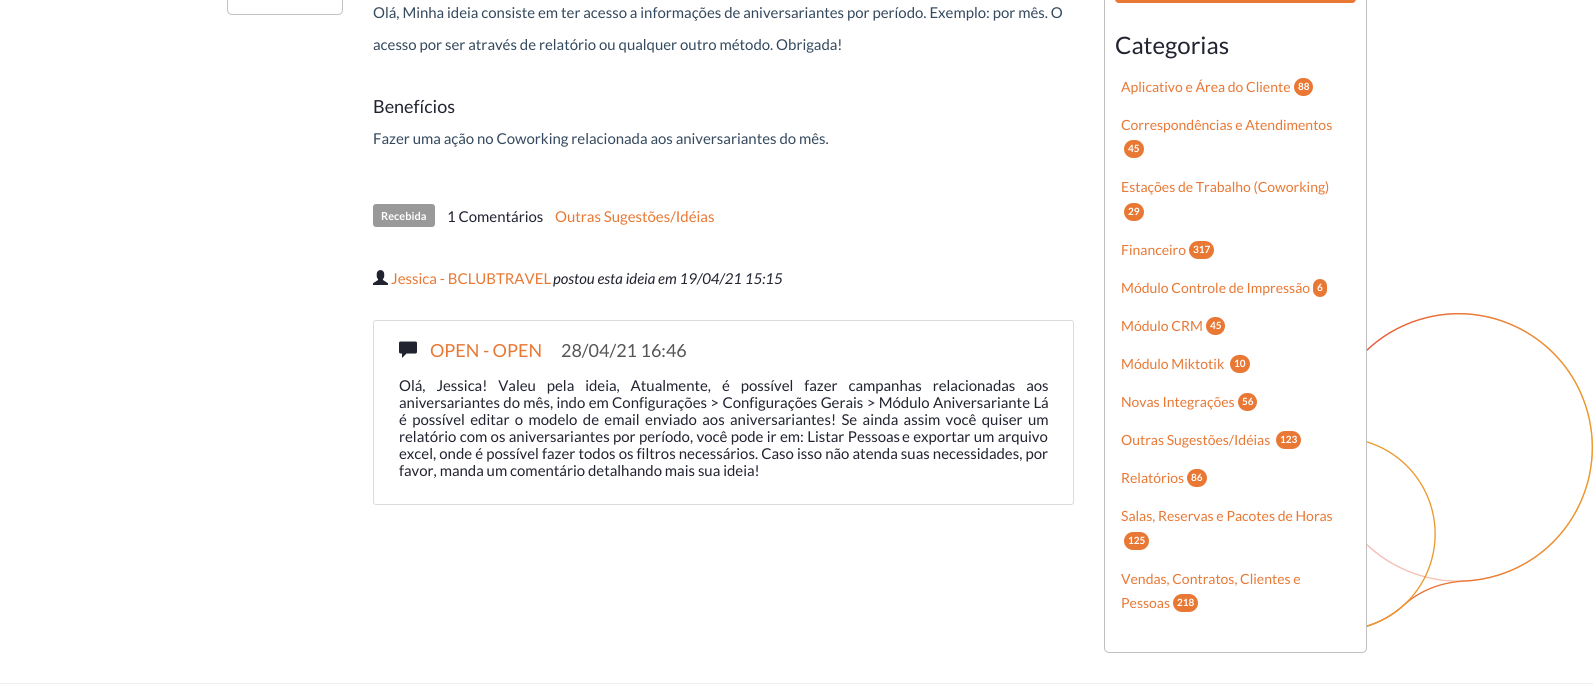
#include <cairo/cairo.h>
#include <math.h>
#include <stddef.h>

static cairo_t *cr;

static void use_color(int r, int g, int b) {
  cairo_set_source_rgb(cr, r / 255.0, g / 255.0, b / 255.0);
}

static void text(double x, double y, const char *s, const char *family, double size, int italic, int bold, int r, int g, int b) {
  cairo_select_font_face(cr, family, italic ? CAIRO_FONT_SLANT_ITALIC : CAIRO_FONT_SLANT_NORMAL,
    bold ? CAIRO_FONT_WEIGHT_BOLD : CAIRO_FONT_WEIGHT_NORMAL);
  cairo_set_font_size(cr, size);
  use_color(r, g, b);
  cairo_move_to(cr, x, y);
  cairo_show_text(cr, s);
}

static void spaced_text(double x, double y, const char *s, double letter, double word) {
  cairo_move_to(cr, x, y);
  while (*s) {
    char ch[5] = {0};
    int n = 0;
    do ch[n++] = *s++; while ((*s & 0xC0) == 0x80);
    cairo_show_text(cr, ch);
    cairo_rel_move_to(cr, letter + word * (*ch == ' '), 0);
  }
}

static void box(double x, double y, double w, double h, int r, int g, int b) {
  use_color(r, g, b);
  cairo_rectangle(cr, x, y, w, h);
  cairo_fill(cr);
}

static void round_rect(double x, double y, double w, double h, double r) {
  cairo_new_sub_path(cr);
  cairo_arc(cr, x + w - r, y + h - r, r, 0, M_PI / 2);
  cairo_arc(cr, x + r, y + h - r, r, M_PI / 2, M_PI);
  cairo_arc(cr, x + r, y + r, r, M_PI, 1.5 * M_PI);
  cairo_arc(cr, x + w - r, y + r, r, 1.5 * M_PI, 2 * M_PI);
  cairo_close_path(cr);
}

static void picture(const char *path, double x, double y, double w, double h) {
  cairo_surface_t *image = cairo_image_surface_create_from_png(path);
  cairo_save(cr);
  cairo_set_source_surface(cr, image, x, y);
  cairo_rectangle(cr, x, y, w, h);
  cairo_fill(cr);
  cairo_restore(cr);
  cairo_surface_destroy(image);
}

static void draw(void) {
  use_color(255, 255, 255);
  cairo_paint(cr);
  picture("img_01.png", 1367, 313, 226, 314);
  round_rect(227.5, -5.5, 115, 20, 4.5);
  use_color(189, 195, 199);
  cairo_set_line_width(cr, 1);
  cairo_stroke(cr);
  use_color(153, 153, 153);
  round_rect(373, 204, 62, 23, 3);
  cairo_fill(cr);
  picture("img_02.png", 373, 270, 15, 15);
  round_rect(373.5, 320.5, 700, 184, 2.5);
  use_color(220, 220, 220);
  cairo_stroke(cr);
  picture("img_03.png", 399, 341, 18, 17);
  round_rect(1104.5, -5.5, 262, 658, 4.5);
  use_color(192, 192, 192);
  cairo_stroke(cr);
  use_color(232, 120, 52);
  round_rect(1115, -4, 241, 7, 4);
  cairo_fill(cr);
  round_rect(1294, 78, 19, 18, 9);
  cairo_fill(cr);
  round_rect(1124, 140, 20, 18, 9);
  cairo_fill(cr);
  round_rect(1124, 203, 20, 18, 9);
  cairo_fill(cr);
  round_rect(1189, 241, 25, 18, 9);
  cairo_fill(cr);
  round_rect(1313, 279, 14, 18, 7);
  cairo_fill(cr);
  round_rect(1206, 317, 19, 18, 9);
  cairo_fill(cr);
  round_rect(1230, 355, 20, 18, 9);
  cairo_fill(cr);
  round_rect(1238, 393, 19, 18, 9);
  cairo_fill(cr);
  round_rect(1276, 431, 25, 18, 9);
  cairo_fill(cr);
  round_rect(1187, 469, 20, 18, 9);
  cairo_fill(cr);
  round_rect(1124, 532, 25, 18, 9);
  cairo_fill(cr);
  round_rect(1173, 594, 25, 18, 9);
  cairo_fill(cr);
  box(0, 683, 1593, 1, 238, 238, 238);
  text(373, 18, "Olá, Minha ideia consiste em ter acesso a informações de aniversariantes por período. Exemplo: por mês. O", "Lato", 14.95, 0, 0, 52, 73, 94);
  text(373, 50, "acesso por ser através de relatório ou qualquer outro método. Obrigada!", "Lato", 14.95, 0, 0, 52, 73, 94);
  text(373, 113, "Benefícios", "Lato", 18, 0, 0, 33, 35, 48);
  text(373, 144, "Fazer uma ação no Coworking relacionada aos aniversariantes do mês.", "Lato", 14.95, 0, 0, 52, 73, 94);
  text(381, 220, "Recebida", "Lato", 11, 0, 1, 255, 255, 255);
  text(447, 222, "1 Comentários", "Lato", 14.95, 0, 0, 33, 35, 48);
  text(555, 222, "Outras Sugestões/Idéias", "Lato", 14.95, 0, 0, 232, 120, 52);
  text(391, 284, "Jessica - BCLUBTRAVEL", "Lato", 14.95, 0, 0, 232, 120, 52);
  text(553, 284, "postou esta ideia em 19/04/21 15:15", "Lato", 14.95, 1, 0, 33, 35, 48);
  text(430, 357, "OPEN - OPEN", "Lato", 18, 0, 0, 232, 120, 52);
  text(561, 357, "28/04/21 16:46", "Lato", 18, 0, 0, 85, 85, 85);
  cairo_set_font_size(cr, 14.95);
  use_color(33, 35, 48);
  spaced_text(399, 391, "Olá, Jessica! Valeu pela ideia, Atualmente, é possível fazer campanhas relacionadas aos", 0, 8);
  spaced_text(399, 408, "aniversariantes do mês, indo em Configurações > Configurações Gerais > Módulo Aniversariante Lá", 0, 0.5);
  spaced_text(399, 425, "é possível editar o modelo de email enviado aos aniversariantes! Se ainda assim você quiser um", 0, 2.5);
  spaced_text(399, 442, "relatório com os aniversariantes por período, você pode ir em: Listar Pessoas", 0, 0.5);
  spaced_text(902, 442, "e exportar um arquivo", 0, 0.5);
  spaced_text(399, 459, "excel, onde é possível fazer todos os filtros necessários. Caso isso não atenda suas necessidades, por", 0, 0.25);
  text(399, 476, "favor, manda um comentário detalhando mais sua ideia!", "Lato", 14.95, 0, 0, 33, 35, 48);
  text(1115, 54, "Categorias", "Lato", 24, 0, 0, 33, 35, 48);
  text(1121, 92, "Aplicativo e Área do Cliente", "Lato", 14, 0, 0, 232, 120, 52);
  text(1298, 90, "88", "Lato", 10, 0, 1, 255, 255, 255);
  text(1121, 130, "Correspondências e Atendimentos", "Lato", 14, 0, 0, 232, 120, 52);
  text(1128, 152, "45", "Lato", 10, 0, 1, 255, 255, 255);
  text(1121, 192, "Estações de Trabalho (Coworking)", "Lato", 14, 0, 0, 232, 120, 52);
  text(1128, 215, "29", "Lato", 10, 0, 1, 255, 255, 255);
  text(1121, 255, "Financeiro", "Lato", 14, 0, 0, 232, 120, 52);
  text(1193, 253, "317", "Lato", 10, 0, 1, 255, 255, 255);
  text(1121, 293, "Módulo Controle de Impressão", "Lato", 14, 0, 0, 232, 120, 52);
  text(1317, 291, "6", "Lato", 10, 0, 1, 255, 255, 255);
  text(1121, 331, "Módulo CRM", "Lato", 14, 0, 0, 232, 120, 52);
  text(1210, 329, "45", "Lato", 10, 0, 1, 255, 255, 255);
  text(1121, 369, "Módulo Miktotik", "Lato", 14, 0, 0, 232, 120, 52);
  text(1234, 367, "10", "Lato", 10, 0, 1, 255, 255, 255);
  text(1121, 407, "Novas Integrações", "Lato", 14, 0, 0, 232, 120, 52);
  text(1242, 405, "56", "Lato", 10, 0, 1, 255, 255, 255);
  text(1121, 445, "Outras Sugestões/Idéias", "Lato", 14, 0, 0, 232, 120, 52);
  text(1280, 443, "123", "Lato", 10, 0, 1, 255, 255, 255);
  text(1121, 483, "Relatórios", "Lato", 14, 0, 0, 232, 120, 52);
  text(1191, 481, "86", "Lato", 10, 0, 1, 255, 255, 255);
  text(1121, 521, "Salas, Reservas e Pacotes de Horas", "Lato", 14, 0, 0, 232, 120, 52);
  text(1128, 544, "125", "Lato", 10, 0, 1, 255, 255, 255);
  text(1121, 584, "Vendas, Contratos, Clientes e", "Lato", 14, 0, 0, 232, 120, 52);
  text(1121, 608, "Pessoas", "Lato", 14, 0, 0, 232, 120, 52);
  text(1177, 606, "218", "Lato", 10, 0, 1, 255, 255, 255);
}

int main(void) {
  cairo_surface_t *surface = cairo_image_surface_create(CAIRO_FORMAT_RGB24, 1593, 686);
  cr = cairo_create(surface);
  cairo_font_options_t *options = cairo_font_options_create();
  cairo_font_options_set_hint_metrics(options, CAIRO_HINT_METRICS_OFF);
  cairo_font_options_set_hint_style(options, CAIRO_HINT_STYLE_NONE);
  cairo_set_font_options(cr, options);
  cairo_set_miter_limit(cr, 4);
  draw();
  cairo_surface_write_to_png(surface, "out.png");
  cairo_font_options_destroy(options);
  cairo_destroy(cr);
  cairo_surface_destroy(surface);
  return 0;
}
